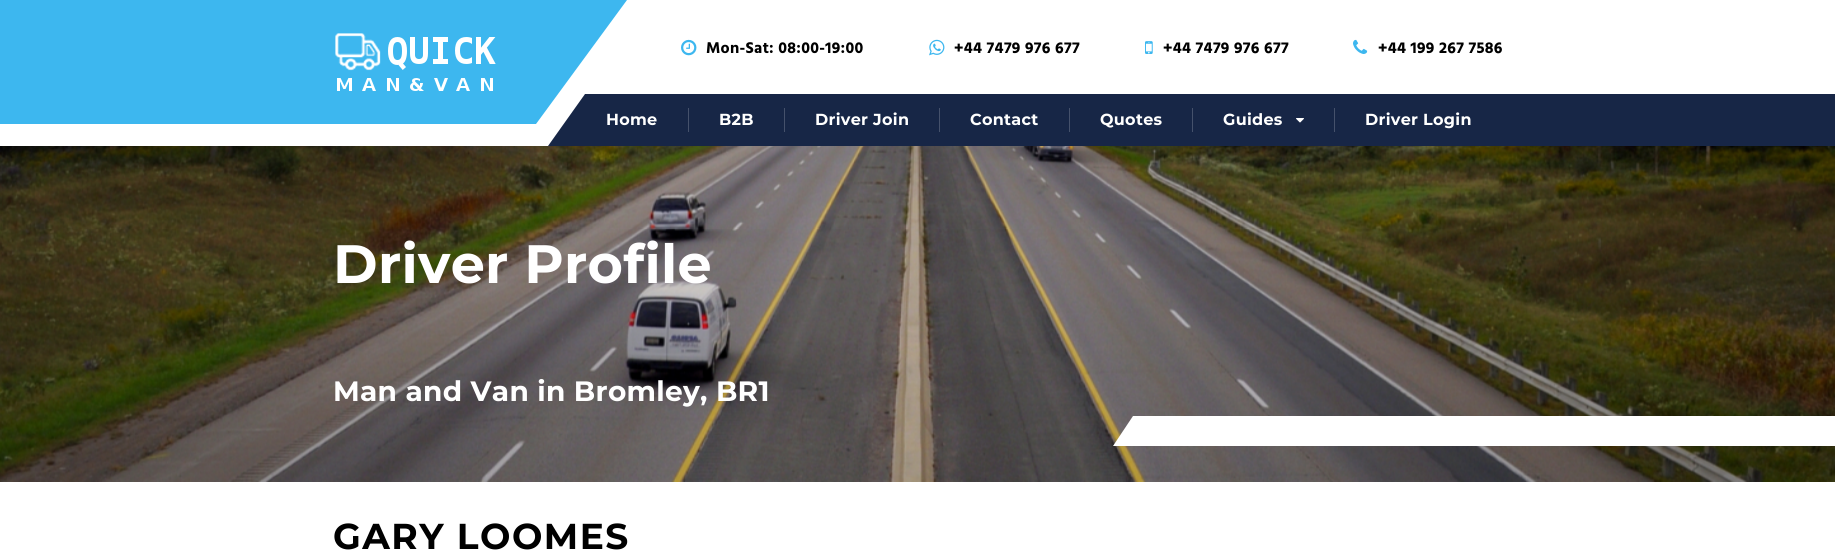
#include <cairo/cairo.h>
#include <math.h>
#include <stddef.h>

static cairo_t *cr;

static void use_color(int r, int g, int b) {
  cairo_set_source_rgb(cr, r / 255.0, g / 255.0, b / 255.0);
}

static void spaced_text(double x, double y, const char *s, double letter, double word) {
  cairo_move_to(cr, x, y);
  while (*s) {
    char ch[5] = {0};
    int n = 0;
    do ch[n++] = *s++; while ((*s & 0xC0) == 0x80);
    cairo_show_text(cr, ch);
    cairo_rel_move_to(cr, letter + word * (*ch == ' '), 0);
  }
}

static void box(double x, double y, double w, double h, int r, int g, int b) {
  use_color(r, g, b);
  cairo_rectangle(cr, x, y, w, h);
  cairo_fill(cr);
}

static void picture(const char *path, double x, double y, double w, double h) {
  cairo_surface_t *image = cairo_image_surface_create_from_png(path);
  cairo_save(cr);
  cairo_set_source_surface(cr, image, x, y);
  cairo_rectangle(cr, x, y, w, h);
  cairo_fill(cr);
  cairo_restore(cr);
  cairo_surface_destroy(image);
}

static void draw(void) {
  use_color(255, 255, 255);
  cairo_paint(cr);
  use_color(23, 38, 70);
  cairo_new_path(cr);
  cairo_move_to(cr, 585, 94);
  cairo_line_to(cr, 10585, 94);
  cairo_line_to(cr, 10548, 146);
  cairo_line_to(cr, 548, 146);
  cairo_close_path(cr);
  cairo_fill(cr);
  use_color(61, 183, 239);
  cairo_new_path(cr);
  cairo_move_to(cr, -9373, 0);
  cairo_line_to(cr, 627, 0);
  cairo_line_to(cr, 536, 124);
  cairo_line_to(cr, -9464, 124);
  cairo_close_path(cr);
  cairo_fill(cr);
  picture("img_01.png", 335, 33, 161, 58);
  picture("img_02.png", 681, 39, 16, 17);
  picture("img_03.png", 929, 39, 16, 17);
  picture("img_04.png", 1145, 41, 8, 13);
  picture("img_05.png", 1353, 39, 15, 15);
  box(688, 108, 1, 24, 69, 81, 107);
  box(784, 108, 1, 24, 69, 81, 107);
  box(939, 108, 1, 24, 69, 81, 107);
  box(1069, 108, 1, 24, 69, 81, 107);
  box(1192, 108, 1, 24, 69, 81, 107);
  box(1334, 108, 1, 24, 69, 81, 107);
  picture("img_06.png", 1296, 118, 8, 5);
  picture("img_07.png", 0, 146, 1835, 336);
  use_color(255, 255, 255);
  cairo_new_path(cr);
  cairo_move_to(cr, 1133, 416);
  cairo_line_to(cr, 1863, 416);
  cairo_line_to(cr, 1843, 446);
  cairo_line_to(cr, 1113, 446);
  cairo_close_path(cr);
  cairo_fill(cr);
  cairo_select_font_face(cr, "Hind", CAIRO_FONT_SLANT_NORMAL, CAIRO_FONT_WEIGHT_BOLD);
  cairo_set_font_size(cr, 16);
  use_color(0, 0, 0);
  spaced_text(706, 53, "Mon-Sat: 08:00-19:00", 0.3, 0);
  spaced_text(954, 53, "+44 7479 976 677", 0.3, 0);
  spaced_text(1163, 53, "+44 7479 976 677", 0.3, 0);
  spaced_text(1378, 53, "+44 199 267 7586", 0.3, 0);
  cairo_select_font_face(cr, "Montserrat", CAIRO_FONT_SLANT_NORMAL, CAIRO_FONT_WEIGHT_BOLD);
  use_color(255, 255, 255);
  spaced_text(606, 125, "Home", 0.3, 0);
  spaced_text(719, 125, "B2B", 0.3, 0);
  spaced_text(815, 125, "Driver Join", 0.3, 0);
  spaced_text(970, 125, "Contact", 0.3, 0);
  spaced_text(1100, 125, "Quotes", 0.3, 0);
  spaced_text(1223, 125, "Guides", 0.3, 0);
  spaced_text(1365, 125, "Driver Login", 0.3, 0);
  cairo_set_font_size(cr, 54);
  spaced_text(333, 283, "Driver Profile", 0.3, 0);
  cairo_set_font_size(cr, 28);
  spaced_text(333, 401, "Man and Van in Bromley, BR1", 0.3, 0);
  cairo_set_font_size(cr, 36);
  use_color(0, 0, 0);
  spaced_text(333, 549, "GARY LOOMES", 1.5, 0);
}

int main(void) {
  cairo_surface_t *surface = cairo_image_surface_create(CAIRO_FORMAT_RGB24, 1835, 552);
  cr = cairo_create(surface);
  cairo_font_options_t *options = cairo_font_options_create();
  cairo_font_options_set_hint_metrics(options, CAIRO_HINT_METRICS_OFF);
  cairo_font_options_set_hint_style(options, CAIRO_HINT_STYLE_NONE);
  cairo_set_font_options(cr, options);
  cairo_set_miter_limit(cr, 4);
  draw();
  cairo_surface_write_to_png(surface, "out.png");
  cairo_font_options_destroy(options);
  cairo_destroy(cr);
  cairo_surface_destroy(surface);
  return 0;
}
